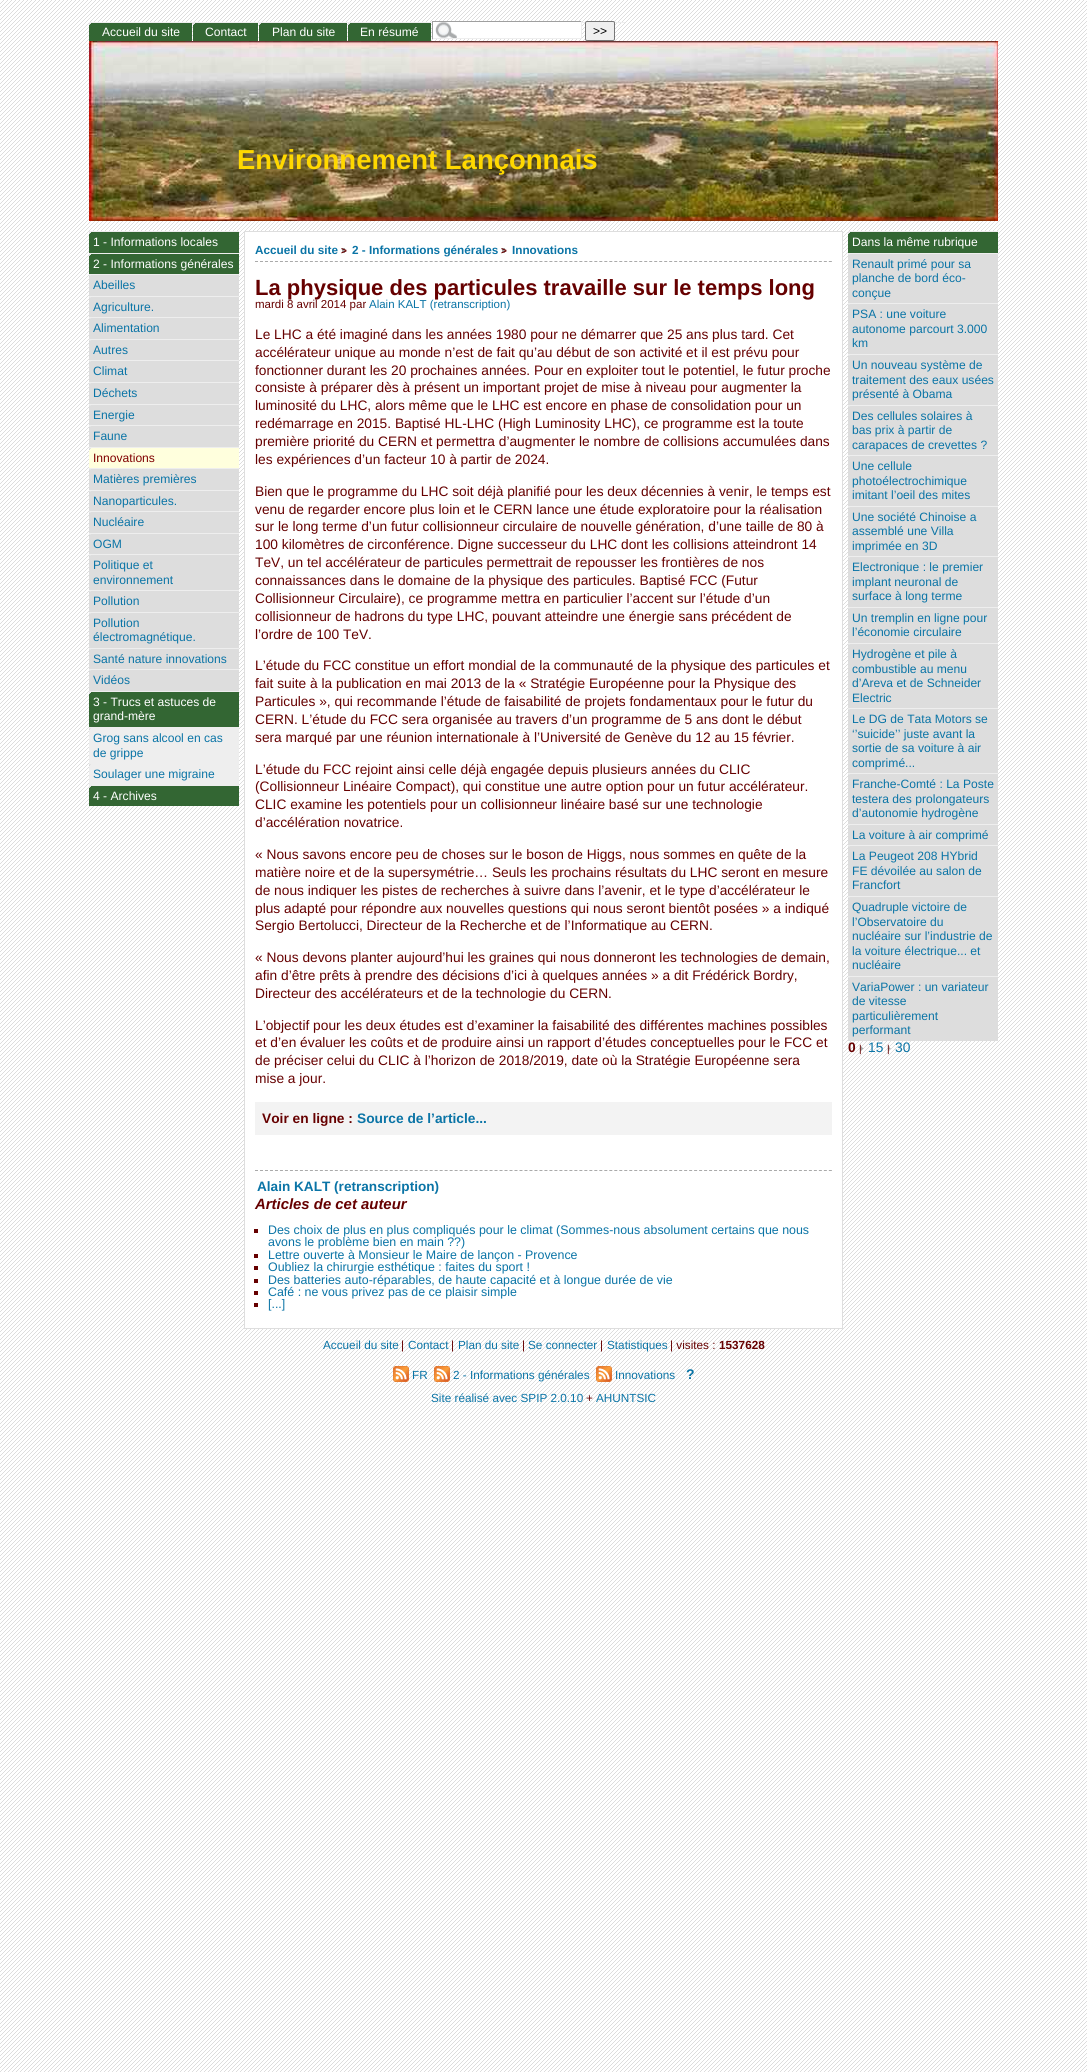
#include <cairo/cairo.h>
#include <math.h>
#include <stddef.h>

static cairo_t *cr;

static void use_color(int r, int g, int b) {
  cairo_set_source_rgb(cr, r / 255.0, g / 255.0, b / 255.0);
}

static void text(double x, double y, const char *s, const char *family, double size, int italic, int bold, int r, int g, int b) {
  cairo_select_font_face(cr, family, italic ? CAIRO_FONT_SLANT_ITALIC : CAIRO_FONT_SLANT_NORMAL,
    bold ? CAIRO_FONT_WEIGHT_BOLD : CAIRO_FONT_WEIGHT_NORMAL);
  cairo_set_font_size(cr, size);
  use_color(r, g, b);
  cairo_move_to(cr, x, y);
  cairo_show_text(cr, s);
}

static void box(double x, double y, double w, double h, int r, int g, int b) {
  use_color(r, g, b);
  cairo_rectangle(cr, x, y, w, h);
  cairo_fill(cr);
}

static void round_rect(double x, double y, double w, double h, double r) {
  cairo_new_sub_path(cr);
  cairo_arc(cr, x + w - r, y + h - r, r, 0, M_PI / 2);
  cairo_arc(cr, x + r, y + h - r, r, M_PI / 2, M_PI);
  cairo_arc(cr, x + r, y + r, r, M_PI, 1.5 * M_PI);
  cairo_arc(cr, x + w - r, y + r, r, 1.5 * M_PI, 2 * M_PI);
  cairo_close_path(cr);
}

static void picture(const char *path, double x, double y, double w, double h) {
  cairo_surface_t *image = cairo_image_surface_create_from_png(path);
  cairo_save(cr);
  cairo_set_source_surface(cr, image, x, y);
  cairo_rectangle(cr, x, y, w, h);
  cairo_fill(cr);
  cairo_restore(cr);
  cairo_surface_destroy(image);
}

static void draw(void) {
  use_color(221, 221, 221);
  cairo_paint(cr);
  picture("img_01.png", 0, 0, 1087, 2072);
  box(89, 22, 343, 1, 238, 238, 238);
  box(89, 23, 103, 18, 51, 102, 51);
  picture("img_02.png", 89, 23, 2, 2);
  box(193, 23, 65, 18, 51, 102, 51);
  picture("img_02.png", 193, 23, 2, 2);
  box(259, 23, 88, 18, 51, 102, 51);
  picture("img_02.png", 259, 23, 2, 2);
  box(348, 23, 83, 18, 51, 102, 51);
  picture("img_02.png", 348, 23, 2, 2);
  box(582, 22, 43, 1, 238, 238, 238);
  box(433, 22, 148, 16, 255, 255, 255);
  picture("img_03.png", 435, 22, 22, 16);
  box(432, 21, 150, 1, 159, 159, 159);
  box(581, 21, 1, 18, 238, 238, 238);
  box(432, 38, 150, 1, 238, 238, 238);
  box(432, 21, 1, 18, 159, 159, 159);
  use_color(239, 239, 239);
  round_rect(585.5, 21.5, 29, 19, 1.5);
  cairo_fill_preserve(cr);
  use_color(118, 118, 118);
  cairo_set_line_width(cr, 1);
  cairo_stroke(cr);
  box(89, 231, 150, 1, 238, 238, 238);
  box(89, 232, 150, 21, 51, 102, 51);
  picture("img_02.png", 89, 232, 2, 2);
  box(89, 253, 150, 1, 238, 238, 238);
  box(89, 254, 150, 20, 51, 102, 51);
  picture("img_02.png", 89, 254, 2, 2);
  box(89, 274, 150, 1, 238, 238, 238);
  box(89, 275, 150, 21, 221, 221, 221);
  picture("img_04.png", 89, 275, 2, 2);
  box(89, 296, 150, 1, 238, 238, 238);
  box(89, 297, 150, 20, 221, 221, 221);
  picture("img_04.png", 89, 297, 2, 2);
  box(89, 317, 150, 1, 238, 238, 238);
  box(89, 318, 150, 21, 221, 221, 221);
  picture("img_04.png", 89, 318, 2, 2);
  box(89, 339, 150, 1, 238, 238, 238);
  box(89, 340, 150, 20, 221, 221, 221);
  picture("img_04.png", 89, 340, 2, 2);
  box(89, 360, 150, 1, 238, 238, 238);
  box(89, 361, 150, 21, 221, 221, 221);
  picture("img_04.png", 89, 361, 2, 2);
  box(89, 382, 150, 1, 238, 238, 238);
  box(89, 383, 150, 21, 221, 221, 221);
  picture("img_04.png", 89, 383, 2, 2);
  box(89, 404, 150, 1, 238, 238, 238);
  box(89, 405, 150, 20, 221, 221, 221);
  picture("img_04.png", 89, 405, 2, 2);
  box(89, 425, 150, 1, 238, 238, 238);
  box(89, 426, 150, 21, 221, 221, 221);
  picture("img_04.png", 89, 426, 2, 2);
  box(89, 447, 150, 1, 238, 238, 238);
  box(89, 448, 150, 20, 255, 255, 221);
  picture("img_05.png", 89, 448, 2, 2);
  box(89, 468, 150, 1, 238, 238, 238);
  box(89, 469, 150, 21, 221, 221, 221);
  picture("img_04.png", 89, 469, 2, 2);
  box(89, 490, 150, 1, 238, 238, 238);
  box(89, 491, 150, 20, 221, 221, 221);
  picture("img_04.png", 89, 491, 2, 2);
  box(89, 511, 150, 1, 238, 238, 238);
  box(89, 512, 150, 21, 221, 221, 221);
  picture("img_04.png", 89, 512, 2, 2);
  box(89, 533, 150, 1, 238, 238, 238);
  box(89, 534, 150, 20, 221, 221, 221);
  picture("img_04.png", 89, 534, 2, 2);
  box(89, 554, 150, 1, 238, 238, 238);
  box(89, 555, 150, 35, 221, 221, 221);
  picture("img_04.png", 89, 555, 2, 2);
  box(89, 590, 150, 1, 238, 238, 238);
  box(89, 591, 150, 21, 221, 221, 221);
  picture("img_04.png", 89, 591, 2, 2);
  box(89, 612, 150, 1, 238, 238, 238);
  box(89, 613, 150, 35, 221, 221, 221);
  picture("img_04.png", 89, 613, 2, 2);
  box(89, 648, 150, 1, 238, 238, 238);
  box(89, 649, 150, 20, 221, 221, 221);
  picture("img_04.png", 89, 649, 2, 2);
  box(89, 669, 150, 1, 238, 238, 238);
  box(89, 670, 150, 21, 221, 221, 221);
  picture("img_04.png", 89, 670, 2, 2);
  box(89, 691, 150, 1, 238, 238, 238);
  box(89, 692, 150, 35, 51, 102, 51);
  picture("img_02.png", 89, 692, 2, 2);
  box(89, 727, 150, 59, 238, 238, 238);
  picture("img_06.png", 89, 728, 2, 2);
  picture("img_06.png", 89, 764, 2, 2);
  box(89, 786, 150, 20, 51, 102, 51);
  picture("img_02.png", 89, 786, 2, 2);
  picture("img_07.png", 89, 41, 909, 180);
  use_color(255, 255, 255);
  cairo_rectangle(cr, 244.5, 231.5, 598, 1097);
  cairo_fill_preserve(cr);
  use_color(222, 222, 222);
  cairo_stroke(cr);
  box(342, 248, 3, 5, 167, 167, 167);
  box(502, 248, 3, 5, 167, 167, 167);
  cairo_new_path(cr);
  cairo_move_to(cr, 255, 261.5);
  cairo_line_to(cr, 832, 261.5);
  use_color(170, 170, 170);
  cairo_set_dash(cr, (double[]){3, 1.99}, 2, 0);
  cairo_stroke(cr);
  box(255, 1102, 577, 33, 243, 243, 243);
  cairo_new_path(cr);
  cairo_move_to(cr, 255, 1170.5);
  cairo_line_to(cr, 832, 1170.5);
  use_color(170, 170, 170);
  cairo_stroke(cr);
  box(254, 1229, 4, 4, 102, 0, 0);
  box(254, 1254, 4, 4, 102, 0, 0);
  box(254, 1266, 4, 4, 102, 0, 0);
  box(254, 1279, 4, 4, 102, 0, 0);
  box(254, 1291, 4, 4, 102, 0, 0);
  box(254, 1303, 4, 4, 102, 0, 0);
  box(848, 231, 150, 1, 238, 238, 238);
  box(848, 232, 150, 21, 51, 102, 51);
  picture("img_02.png", 848, 232, 2, 2);
  box(848, 253, 150, 1, 238, 238, 238);
  box(848, 254, 150, 49, 221, 221, 221);
  picture("img_04.png", 848, 254, 2, 2);
  box(848, 303, 150, 1, 238, 238, 238);
  box(848, 304, 150, 50, 221, 221, 221);
  picture("img_04.png", 848, 304, 2, 2);
  box(848, 354, 150, 1, 238, 238, 238);
  box(848, 355, 150, 50, 221, 221, 221);
  picture("img_04.png", 848, 355, 2, 2);
  box(848, 405, 150, 1, 238, 238, 238);
  box(848, 406, 150, 49, 221, 221, 221);
  picture("img_04.png", 848, 406, 2, 2);
  box(848, 455, 150, 1, 238, 238, 238);
  box(848, 456, 150, 50, 221, 221, 221);
  picture("img_04.png", 848, 456, 2, 2);
  box(848, 506, 150, 1, 238, 238, 238);
  box(848, 507, 150, 49, 221, 221, 221);
  picture("img_04.png", 848, 507, 2, 2);
  box(848, 556, 150, 1, 238, 238, 238);
  box(848, 557, 150, 50, 221, 221, 221);
  picture("img_04.png", 848, 557, 2, 2);
  box(848, 607, 150, 1, 238, 238, 238);
  box(848, 608, 150, 35, 221, 221, 221);
  picture("img_04.png", 848, 608, 2, 2);
  box(848, 643, 150, 1, 238, 238, 238);
  box(848, 644, 150, 64, 221, 221, 221);
  picture("img_04.png", 848, 644, 2, 2);
  box(848, 708, 150, 1, 238, 238, 238);
  box(848, 709, 150, 64, 221, 221, 221);
  picture("img_04.png", 848, 709, 2, 2);
  box(848, 773, 150, 1, 238, 238, 238);
  box(848, 774, 150, 50, 221, 221, 221);
  picture("img_04.png", 848, 774, 2, 2);
  box(848, 824, 150, 1, 238, 238, 238);
  box(848, 825, 150, 20, 221, 221, 221);
  picture("img_04.png", 848, 825, 2, 2);
  box(848, 845, 150, 1, 238, 238, 238);
  box(848, 846, 150, 50, 221, 221, 221);
  picture("img_04.png", 848, 846, 2, 2);
  box(848, 896, 150, 1, 238, 238, 238);
  box(848, 897, 150, 79, 221, 221, 221);
  picture("img_04.png", 848, 897, 2, 2);
  box(848, 976, 150, 1, 238, 238, 238);
  box(848, 977, 150, 64, 221, 221, 221);
  picture("img_04.png", 848, 977, 2, 2);
  picture("img_08.png", 860, 1046, 4, 5);
  picture("img_09.png", 887, 1046, 4, 5);
  picture("img_10.png", 393, 1366, 16, 16);
  picture("img_11.png", 434, 1366, 16, 16);
  picture("img_12.png", 596, 1366, 16, 16);
  text(102, 36, "Accueil du site", "Liberation Sans", 12.1, 0, 0, 255, 255, 255);
  text(205, 36, "Contact", "Liberation Sans", 12.1, 0, 0, 255, 255, 255);
  text(272, 36, "Plan du site", "Liberation Sans", 12.1, 0, 0, 255, 255, 255);
  text(360, 36, "En résumé", "Liberation Sans", 12.1, 0, 0, 255, 255, 255);
  text(593, 35, ">>", "Liberation Sans", 12.1, 0, 0, 0, 0, 0);
  text(93, 246, "1 - Informations locales", "Liberation Sans", 12.1, 0, 0, 255, 255, 255);
  text(93, 268, "2 - Informations générales", "Liberation Sans", 12.1, 0, 0, 255, 255, 255);
  text(93, 289, "Abeilles", "Liberation Sans", 12.1, 0, 0, 10, 116, 166);
  text(93, 311, "Agriculture.", "Liberation Sans", 12.1, 0, 0, 10, 116, 166);
  text(93, 332, "Alimentation", "Liberation Sans", 12.1, 0, 0, 10, 116, 166);
  text(93, 354, "Autres", "Liberation Sans", 12.1, 0, 0, 10, 116, 166);
  text(93, 375, "Climat", "Liberation Sans", 12.1, 0, 0, 10, 116, 166);
  text(93, 397, "Déchets", "Liberation Sans", 12.1, 0, 0, 10, 116, 166);
  text(93, 419, "Energie", "Liberation Sans", 12.1, 0, 0, 10, 116, 166);
  text(93, 440, "Faune", "Liberation Sans", 12.1, 0, 0, 10, 116, 166);
  text(93, 462, "Innovations", "Liberation Sans", 12.1, 0, 0, 128, 0, 0);
  text(93, 483, "Matières premières", "Liberation Sans", 12.1, 0, 0, 10, 116, 166);
  text(93, 505, "Nanoparticules.", "Liberation Sans", 12.1, 0, 0, 10, 116, 166);
  text(93, 526, "Nucléaire", "Liberation Sans", 12.1, 0, 0, 10, 116, 166);
  text(93, 548, "OGM", "Liberation Sans", 12.1, 0, 0, 10, 116, 166);
  text(93, 569, "Politique et", "Liberation Sans", 12.1, 0, 0, 10, 116, 166);
  text(93, 584, "environnement", "Liberation Sans", 12.1, 0, 0, 10, 116, 166);
  text(93, 605, "Pollution", "Liberation Sans", 12.1, 0, 0, 10, 116, 166);
  text(93, 627, "Pollution", "Liberation Sans", 12.1, 0, 0, 10, 116, 166);
  text(93, 641, "électromagnétique.", "Liberation Sans", 12.1, 0, 0, 10, 116, 166);
  text(93, 663, "Santé nature innovations", "Liberation Sans", 12.1, 0, 0, 10, 116, 166);
  text(93, 684, "Vidéos", "Liberation Sans", 12.1, 0, 0, 10, 116, 166);
  text(93, 706, "3 - Trucs et astuces de", "Liberation Sans", 12.1, 0, 0, 255, 255, 255);
  text(93, 720, "grand-mère", "Liberation Sans", 12.1, 0, 0, 255, 255, 255);
  text(93, 742, "Grog sans alcool en cas", "Liberation Sans", 12.1, 0, 0, 10, 116, 166);
  text(93, 757, "de grippe", "Liberation Sans", 12.1, 0, 0, 10, 116, 166);
  text(93, 778, "Soulager une migraine", "Liberation Sans", 12.1, 0, 0, 10, 116, 166);
  text(93, 800, "4 - Archives", "Liberation Sans", 12.1, 0, 0, 255, 255, 255);
  text(237, 169, "Environnement Lançonnais", "Liberation Sans", 27.5, 0, 1, 255, 216, 0);
  text(255, 254, "Accueil du site", "Liberation Sans", 11.75, 0, 1, 10, 116, 166);
  text(341, 254, ">", "Liberation Sans", 10, 0, 1, 102, 0, 0);
  text(352, 254, "2 - Informations générales", "Liberation Sans", 11.75, 0, 1, 10, 116, 166);
  text(501, 254, ">", "Liberation Sans", 10, 0, 1, 102, 0, 0);
  text(512, 254, "Innovations", "Liberation Sans", 11.75, 0, 1, 10, 116, 166);
  text(255, 295, "La physique des particules travaille sur le temps long", "Liberation Sans", 22, 0, 1, 102, 0, 0);
  text(255, 308, "mardi 8 avril 2014 par", "Liberation Sans", 11.5, 0, 0, 102, 0, 0);
  text(369, 308, "Alain KALT (retranscription)", "Liberation Sans", 11.5, 0, 0, 10, 116, 166);
  text(255, 339, "Le LHC a été imaginé dans les années 1980 pour ne démarrer que 25 ans plus tard. Cet", "Liberation Sans", 13.75, 0, 0, 102, 0, 0);
  text(255, 357, "accélérateur unique au monde n’est de fait qu’au début de son activité et il est prévu pour", "Liberation Sans", 13.75, 0, 0, 102, 0, 0);
  text(255, 375, "fonctionner durant les 20 prochaines années. Pour en exploiter tout le potentiel, le futur proche", "Liberation Sans", 13.75, 0, 0, 102, 0, 0);
  text(255, 392, "consiste à préparer dès à présent un important projet de mise à niveau pour augmenter la", "Liberation Sans", 13.75, 0, 0, 102, 0, 0);
  text(255, 410, "luminosité du LHC, alors même que le LHC est encore en phase de consolidation pour un", "Liberation Sans", 13.75, 0, 0, 102, 0, 0);
  text(255, 428, "redémarrage en 2015. Baptisé HL-LHC (High Luminosity LHC), ce programme est la toute", "Liberation Sans", 13.75, 0, 0, 102, 0, 0);
  text(255, 446, "première priorité du CERN et permettra d’augmenter le nombre de collisions accumulées dans", "Liberation Sans", 13.75, 0, 0, 102, 0, 0);
  text(255, 464, "les expériences d’un facteur 10 à partir de 2024.", "Liberation Sans", 13.75, 0, 0, 102, 0, 0);
  text(255, 496, "Bien que le programme du LHC soit déjà planifié pour les deux décennies à venir, le temps est", "Liberation Sans", 13.75, 0, 0, 102, 0, 0);
  text(255, 514, "venu de regarder encore plus loin et le CERN lance une étude exploratoire pour la réalisation", "Liberation Sans", 13.75, 0, 0, 102, 0, 0);
  text(255, 531, "sur le long terme d’un futur collisionneur circulaire de nouvelle génération, d’une taille de 80 à", "Liberation Sans", 13.75, 0, 0, 102, 0, 0);
  text(255, 549, "100 kilomètres de circonférence. Digne successeur du LHC dont les collisions atteindront 14", "Liberation Sans", 13.75, 0, 0, 102, 0, 0);
  text(255, 567, "TeV, un tel accélérateur de particules permettrait de repousser les frontières de nos", "Liberation Sans", 13.75, 0, 0, 102, 0, 0);
  text(255, 585, "connaissances dans le domaine de la physique des particules. Baptisé FCC (Futur", "Liberation Sans", 13.75, 0, 0, 102, 0, 0);
  text(255, 603, "Collisionneur Circulaire), ce programme mettra en particulier l’accent sur l’étude d’un", "Liberation Sans", 13.75, 0, 0, 102, 0, 0);
  text(255, 621, "collisionneur de hadrons du type LHC, pouvant atteindre une énergie sans précédent de", "Liberation Sans", 13.75, 0, 0, 102, 0, 0);
  text(255, 639, "l’ordre de 100 TeV.", "Liberation Sans", 13.75, 0, 0, 102, 0, 0);
  text(255, 670, "L’étude du FCC constitue un effort mondial de la communauté de la physique des particules et", "Liberation Sans", 13.75, 0, 0, 102, 0, 0);
  text(255, 688, "fait suite à la publication en mai 2013 de la « Stratégie Européenne pour la Physique des", "Liberation Sans", 13.75, 0, 0, 102, 0, 0);
  text(255, 706, "Particules », qui recommande l’étude de faisabilité de projets fondamentaux pour le futur du", "Liberation Sans", 13.75, 0, 0, 102, 0, 0);
  text(255, 724, "CERN. L’étude du FCC sera organisée au travers d’un programme de 5 ans dont le début", "Liberation Sans", 13.75, 0, 0, 102, 0, 0);
  text(255, 742, "sera marqué par une réunion internationale à l’Université de Genève du 12 au 15 février.", "Liberation Sans", 13.75, 0, 0, 102, 0, 0);
  text(255, 774, "L’étude du FCC rejoint ainsi celle déjà engagée depuis plusieurs années du CLIC", "Liberation Sans", 13.75, 0, 0, 102, 0, 0);
  text(255, 791, "(Collisionneur Linéaire Compact), qui constitue une autre option pour un futur accélérateur.", "Liberation Sans", 13.75, 0, 0, 102, 0, 0);
  text(255, 809, "CLIC examine les potentiels pour un collisionneur linéaire basé sur une technologie", "Liberation Sans", 13.75, 0, 0, 102, 0, 0);
  text(255, 827, "d’accélération novatrice.", "Liberation Sans", 13.75, 0, 0, 102, 0, 0);
  text(255, 859, "« Nous savons encore peu de choses sur le boson de Higgs, nous sommes en quête de la", "Liberation Sans", 13.75, 0, 0, 102, 0, 0);
  text(255, 877, "matière noire et de la supersymétrie… Seuls les prochains résultats du LHC seront en mesure", "Liberation Sans", 13.75, 0, 0, 102, 0, 0);
  text(255, 895, "de nous indiquer les pistes de recherches à suivre dans l’avenir, et le type d’accélérateur le", "Liberation Sans", 13.75, 0, 0, 102, 0, 0);
  text(255, 913, "plus adapté pour répondre aux nouvelles questions qui nous seront bientôt posées » a indiqué", "Liberation Sans", 13.75, 0, 0, 102, 0, 0);
  text(255, 930, "Sergio Bertolucci, Directeur de la Recherche et de l’Informatique au CERN.", "Liberation Sans", 13.75, 0, 0, 102, 0, 0);
  text(255, 962, "« Nous devons planter aujourd’hui les graines qui nous donneront les technologies de demain,", "Liberation Sans", 13.75, 0, 0, 102, 0, 0);
  text(255, 980, "afin d’être prêts à prendre des décisions d’ici à quelques années » a dit Frédérick Bordry,", "Liberation Sans", 13.75, 0, 0, 102, 0, 0);
  text(255, 998, "Directeur des accélérateurs et de la technologie du CERN.", "Liberation Sans", 13.75, 0, 0, 102, 0, 0);
  text(255, 1030, "L’objectif pour les deux études est d’examiner la faisabilité des différentes machines possibles", "Liberation Sans", 13.75, 0, 0, 102, 0, 0);
  text(255, 1047, "et d’en évaluer les coûts et de produire ainsi un rapport d’études conceptuelles pour le FCC et", "Liberation Sans", 13.75, 0, 0, 102, 0, 0);
  text(255, 1065, "de préciser celui du CLIC à l’horizon de 2018/2019, date où la Stratégie Européenne sera", "Liberation Sans", 13.75, 0, 0, 102, 0, 0);
  text(255, 1083, "mise a jour.", "Liberation Sans", 13.75, 0, 0, 102, 0, 0);
  text(262, 1123, "Voir en ligne :", "Liberation Sans", 13.75, 0, 1, 102, 0, 0);
  text(357, 1123, "Source de l’article...", "Liberation Sans", 13.75, 0, 1, 10, 116, 166);
  text(257, 1191, "Alain KALT (retranscription)", "Liberation Sans", 13.6, 0, 1, 10, 116, 166);
  text(255, 1209, "Articles de cet auteur", "Liberation Sans", 14.9, 1, 1, 102, 0, 0);
  text(268, 1234, "Des choix de plus en plus compliqués pour le climat (Sommes-nous absolument certains que nous", "Liberation Sans", 12.4, 0, 0, 10, 116, 166);
  text(268, 1246, "avons le problème bien en main ?\077)", "Liberation Sans", 12.4, 0, 0, 10, 116, 166);
  text(268, 1259, "Lettre ouverte à Monsieur le Maire de lançon - Provence", "Liberation Sans", 12.4, 0, 0, 10, 116, 166);
  text(268, 1271, "Oubliez la chirurgie esthétique : faites du sport !", "Liberation Sans", 12.4, 0, 0, 10, 116, 166);
  text(268, 1284, "Des batteries auto-réparables, de haute capacité et à longue durée de vie", "Liberation Sans", 12.4, 0, 0, 10, 116, 166);
  text(268, 1296, "Café : ne vous privez pas de ce plaisir simple", "Liberation Sans", 12.4, 0, 0, 10, 116, 166);
  text(268, 1308, "[...]", "Liberation Sans", 12.4, 0, 0, 10, 116, 166);
  text(852, 246, "Dans la même rubrique", "Liberation Sans", 12.1, 0, 0, 255, 255, 255);
  text(852, 268, "Renault primé pour sa", "Liberation Sans", 12.1, 0, 0, 10, 116, 166);
  text(852, 282, "planche de bord éco-", "Liberation Sans", 12.1, 0, 0, 10, 116, 166);
  text(852, 297, "conçue", "Liberation Sans", 12.1, 0, 0, 10, 116, 166);
  text(852, 318, "PSA : une voiture", "Liberation Sans", 12.1, 0, 0, 10, 116, 166);
  text(852, 333, "autonome parcourt 3.000", "Liberation Sans", 12.1, 0, 0, 10, 116, 166);
  text(852, 347, "km", "Liberation Sans", 12.1, 0, 0, 10, 116, 166);
  text(852, 369, "Un nouveau système de", "Liberation Sans", 12.1, 0, 0, 10, 116, 166);
  text(852, 384, "traitement des eaux usées", "Liberation Sans", 12.1, 0, 0, 10, 116, 166);
  text(852, 398, "présenté à Obama", "Liberation Sans", 12.1, 0, 0, 10, 116, 166);
  text(852, 420, "Des cellules solaires à", "Liberation Sans", 12.1, 0, 0, 10, 116, 166);
  text(852, 434, "bas prix à partir de", "Liberation Sans", 12.1, 0, 0, 10, 116, 166);
  text(852, 449, "carapaces de crevettes ?", "Liberation Sans", 12.1, 0, 0, 10, 116, 166);
  text(852, 470, "Une cellule", "Liberation Sans", 12.1, 0, 0, 10, 116, 166);
  text(852, 485, "photoélectrochimique", "Liberation Sans", 12.1, 0, 0, 10, 116, 166);
  text(852, 499, "imitant l’oeil des mites", "Liberation Sans", 12.1, 0, 0, 10, 116, 166);
  text(852, 521, "Une société Chinoise a", "Liberation Sans", 12.1, 0, 0, 10, 116, 166);
  text(852, 535, "assemblé une Villa", "Liberation Sans", 12.1, 0, 0, 10, 116, 166);
  text(852, 550, "imprimée en 3D", "Liberation Sans", 12.1, 0, 0, 10, 116, 166);
  text(852, 571, "Electronique : le premier", "Liberation Sans", 12.1, 0, 0, 10, 116, 166);
  text(852, 586, "implant neuronal de", "Liberation Sans", 12.1, 0, 0, 10, 116, 166);
  text(852, 600, "surface à long terme", "Liberation Sans", 12.1, 0, 0, 10, 116, 166);
  text(852, 622, "Un tremplin en ligne pour", "Liberation Sans", 12.1, 0, 0, 10, 116, 166);
  text(852, 636, "l’économie circulaire", "Liberation Sans", 12.1, 0, 0, 10, 116, 166);
  text(852, 658, "Hydrogène et pile à", "Liberation Sans", 12.1, 0, 0, 10, 116, 166);
  text(852, 673, "combustible au menu", "Liberation Sans", 12.1, 0, 0, 10, 116, 166);
  text(852, 687, "d’Areva et de Schneider", "Liberation Sans", 12.1, 0, 0, 10, 116, 166);
  text(852, 702, "Electric", "Liberation Sans", 12.1, 0, 0, 10, 116, 166);
  text(852, 723, "Le DG de Tata Motors se", "Liberation Sans", 12.1, 0, 0, 10, 116, 166);
  text(852, 738, "‘’suicide’’ juste avant la", "Liberation Sans", 12.1, 0, 0, 10, 116, 166);
  text(852, 752, "sortie de sa voiture à air", "Liberation Sans", 12.1, 0, 0, 10, 116, 166);
  text(852, 767, "comprimé...", "Liberation Sans", 12.1, 0, 0, 10, 116, 166);
  text(852, 788, "Franche-Comté : La Poste", "Liberation Sans", 12.1, 0, 0, 10, 116, 166);
  text(852, 803, "testera des prolongateurs", "Liberation Sans", 12.1, 0, 0, 10, 116, 166);
  text(852, 817, "d’autonomie hydrogène", "Liberation Sans", 12.1, 0, 0, 10, 116, 166);
  text(852, 839, "La voiture à air comprimé", "Liberation Sans", 12.1, 0, 0, 10, 116, 166);
  text(852, 860, "La Peugeot 208 HYbrid", "Liberation Sans", 12.1, 0, 0, 10, 116, 166);
  text(852, 875, "FE dévoilée au salon de", "Liberation Sans", 12.1, 0, 0, 10, 116, 166);
  text(852, 889, "Francfort", "Liberation Sans", 12.1, 0, 0, 10, 116, 166);
  text(852, 911, "Quadruple victoire de", "Liberation Sans", 12.1, 0, 0, 10, 116, 166);
  text(852, 926, "l’Observatoire du", "Liberation Sans", 12.1, 0, 0, 10, 116, 166);
  text(852, 940, "nucléaire sur l’industrie de", "Liberation Sans", 12.1, 0, 0, 10, 116, 166);
  text(852, 955, "la voiture électrique... et", "Liberation Sans", 12.1, 0, 0, 10, 116, 166);
  text(852, 969, "nucléaire", "Liberation Sans", 12.1, 0, 0, 10, 116, 166);
  text(852, 991, "VariaPower : un variateur", "Liberation Sans", 12.1, 0, 0, 10, 116, 166);
  text(852, 1005, "de vitesse", "Liberation Sans", 12.1, 0, 0, 10, 116, 166);
  text(852, 1020, "particulièrement", "Liberation Sans", 12.1, 0, 0, 10, 116, 166);
  text(852, 1034, "performant", "Liberation Sans", 12.1, 0, 0, 10, 116, 166);
  text(848, 1052, "0", "Liberation Sans", 13.75, 0, 1, 102, 0, 0);
  text(859, 1052, "|", "Liberation Sans", 10, 0, 0, 102, 0, 0);
  text(868, 1052, "15", "Liberation Sans", 13.75, 0, 0, 10, 116, 166);
  text(887, 1052, "|", "Liberation Sans", 10, 0, 0, 102, 0, 0);
  text(895, 1052, "30", "Liberation Sans", 13.75, 0, 0, 10, 116, 166);
  text(323, 1349, "Accueil du site", "Liberation Sans", 11.75, 0, 0, 10, 116, 166);
  text(401, 1349, "|", "Liberation Sans", 11.75, 0, 0, 102, 0, 0);
  text(408, 1349, "Contact", "Liberation Sans", 11.75, 0, 0, 10, 116, 166);
  text(451, 1349, "|", "Liberation Sans", 11.75, 0, 0, 102, 0, 0);
  text(458, 1349, "Plan du site", "Liberation Sans", 11.75, 0, 0, 10, 116, 166);
  text(522, 1349, "|", "Liberation Sans", 11.75, 0, 0, 102, 0, 0);
  text(528, 1349, "Se connecter", "Liberation Sans", 11.75, 0, 0, 10, 116, 166);
  text(600, 1349, "|", "Liberation Sans", 11.75, 0, 0, 102, 0, 0);
  text(607, 1349, "Statistiques", "Liberation Sans", 11.75, 0, 0, 10, 116, 166);
  text(670, 1349, "| visites :", "Liberation Sans", 11.75, 0, 0, 102, 0, 0);
  text(719, 1349, "1537628", "Liberation Sans", 11.75, 0, 1, 102, 0, 0);
  text(412, 1379, "FR", "Liberation Sans", 11.75, 0, 0, 10, 116, 166);
  text(453, 1379, "2 - Informations générales", "Liberation Sans", 11.75, 0, 0, 10, 116, 166);
  text(615, 1379, "Innovations", "Liberation Sans", 11.75, 0, 0, 10, 116, 166);
  text(686, 1379, "?", "Liberation Sans", 14, 0, 1, 10, 116, 166);
  text(431, 1402, "Site réalisé avec SPIP 2.0.10", "Liberation Sans", 11.75, 0, 0, 10, 116, 166);
  text(586, 1402, "+", "Liberation Sans", 11.75, 0, 0, 102, 0, 0);
  text(596, 1402, "AHUNTSIC", "Liberation Sans", 11.75, 0, 0, 10, 116, 166);
}

int main(void) {
  cairo_surface_t *surface = cairo_image_surface_create(CAIRO_FORMAT_RGB24, 1087, 2072);
  cr = cairo_create(surface);
  cairo_font_options_t *options = cairo_font_options_create();
  cairo_font_options_set_hint_metrics(options, CAIRO_HINT_METRICS_OFF);
  cairo_font_options_set_hint_style(options, CAIRO_HINT_STYLE_NONE);
  cairo_set_font_options(cr, options);
  cairo_set_miter_limit(cr, 4);
  draw();
  cairo_surface_write_to_png(surface, "out.png");
  cairo_font_options_destroy(options);
  cairo_destroy(cr);
  cairo_surface_destroy(surface);
  return 0;
}
